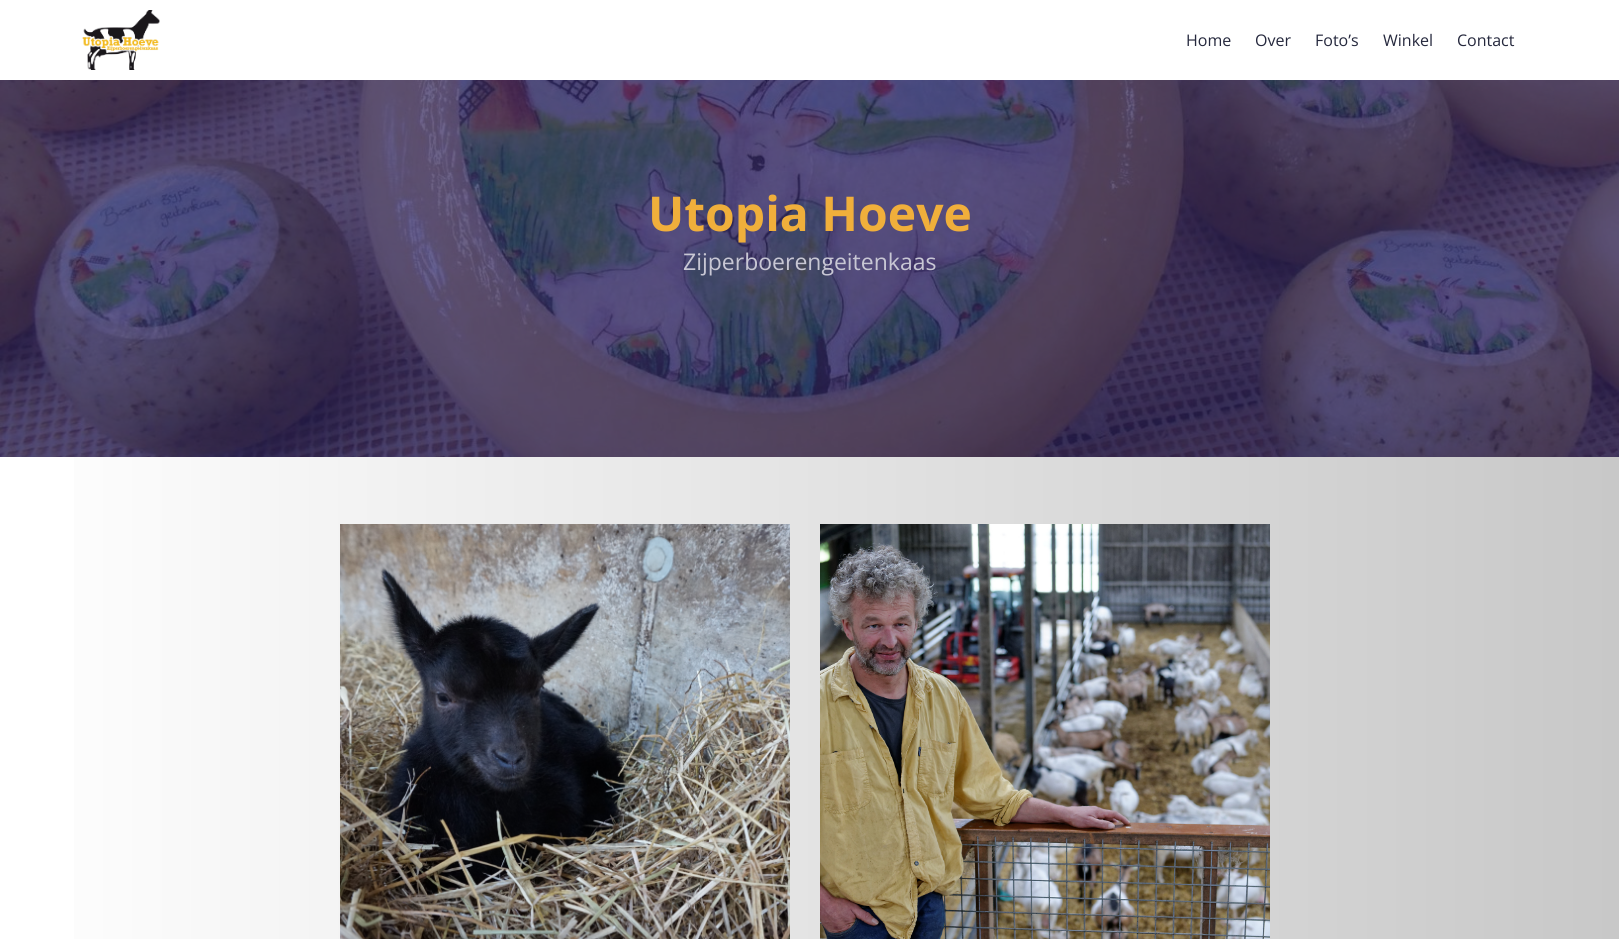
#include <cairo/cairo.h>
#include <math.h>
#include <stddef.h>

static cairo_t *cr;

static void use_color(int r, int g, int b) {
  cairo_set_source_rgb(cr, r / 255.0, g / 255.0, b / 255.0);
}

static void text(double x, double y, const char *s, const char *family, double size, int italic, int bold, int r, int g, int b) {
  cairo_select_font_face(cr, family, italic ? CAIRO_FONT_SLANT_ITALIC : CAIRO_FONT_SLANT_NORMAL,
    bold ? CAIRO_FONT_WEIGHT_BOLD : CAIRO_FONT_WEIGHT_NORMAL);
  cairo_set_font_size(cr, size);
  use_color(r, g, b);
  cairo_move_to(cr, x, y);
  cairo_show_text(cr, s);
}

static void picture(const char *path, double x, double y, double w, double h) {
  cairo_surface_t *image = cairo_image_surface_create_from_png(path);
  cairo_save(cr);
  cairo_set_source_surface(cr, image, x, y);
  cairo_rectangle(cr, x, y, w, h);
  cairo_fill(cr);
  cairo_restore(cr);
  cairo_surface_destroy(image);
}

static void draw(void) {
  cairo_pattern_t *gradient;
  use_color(255, 255, 255);
  cairo_paint(cr);
  picture("img_01.png", 82, 10, 78, 60);
  picture("img_02.png", 0, 80, 1619, 377);
  gradient = cairo_pattern_create_linear(1619, 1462, 0, 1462);
  cairo_pattern_add_color_stop_rgba(gradient, 0, 0.784, 0.784, 0.784, 1);
  cairo_pattern_add_color_stop_rgba(gradient, 1, 1, 1, 1, 1);
  cairo_set_source(cr, gradient);
  cairo_pattern_destroy(gradient);
  cairo_rectangle(cr, 74, 457, 1545, 482);
  cairo_fill(cr);
  picture("img_03.png", 340, 524, 450, 415);
  picture("img_04.png", 820, 524, 450, 415);
  text(1186, 46, "Home", "Open Sans", 16, 0, 0, 37, 40, 61);
  text(1255, 46, "Over", "Open Sans", 16, 0, 0, 37, 40, 61);
  text(1315, 46, "Foto’s", "Open Sans", 16, 0, 0, 37, 40, 61);
  text(1383, 46, "Winkel", "Open Sans", 16, 0, 0, 37, 40, 61);
  text(1457, 46, "Contact", "Open Sans", 16, 0, 0, 37, 40, 61);
  text(648, 231, "Utopia Hoeve", "Open Sans", 48, 0, 1, 240, 175, 59);
  text(683, 270, "Zijperboerengeitenkaas", "Open Sans", 23, 0, 0, 200, 199, 212);
}

int main(void) {
  cairo_surface_t *surface = cairo_image_surface_create(CAIRO_FORMAT_RGB24, 1619, 939);
  cr = cairo_create(surface);
  cairo_font_options_t *options = cairo_font_options_create();
  cairo_font_options_set_hint_metrics(options, CAIRO_HINT_METRICS_OFF);
  cairo_font_options_set_hint_style(options, CAIRO_HINT_STYLE_NONE);
  cairo_set_font_options(cr, options);
  cairo_set_miter_limit(cr, 4);
  draw();
  cairo_surface_write_to_png(surface, "out.png");
  cairo_font_options_destroy(options);
  cairo_destroy(cr);
  cairo_surface_destroy(surface);
  return 0;
}
